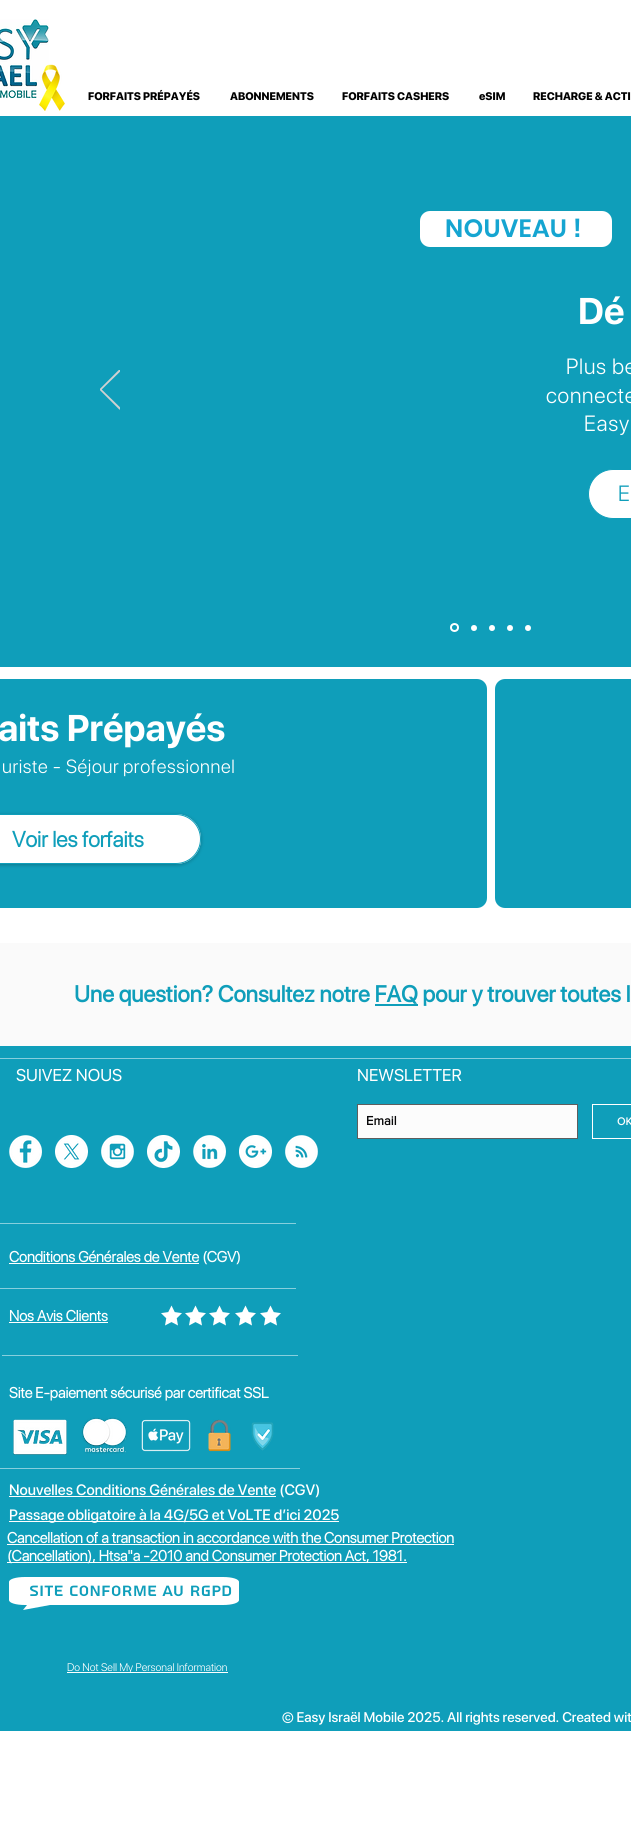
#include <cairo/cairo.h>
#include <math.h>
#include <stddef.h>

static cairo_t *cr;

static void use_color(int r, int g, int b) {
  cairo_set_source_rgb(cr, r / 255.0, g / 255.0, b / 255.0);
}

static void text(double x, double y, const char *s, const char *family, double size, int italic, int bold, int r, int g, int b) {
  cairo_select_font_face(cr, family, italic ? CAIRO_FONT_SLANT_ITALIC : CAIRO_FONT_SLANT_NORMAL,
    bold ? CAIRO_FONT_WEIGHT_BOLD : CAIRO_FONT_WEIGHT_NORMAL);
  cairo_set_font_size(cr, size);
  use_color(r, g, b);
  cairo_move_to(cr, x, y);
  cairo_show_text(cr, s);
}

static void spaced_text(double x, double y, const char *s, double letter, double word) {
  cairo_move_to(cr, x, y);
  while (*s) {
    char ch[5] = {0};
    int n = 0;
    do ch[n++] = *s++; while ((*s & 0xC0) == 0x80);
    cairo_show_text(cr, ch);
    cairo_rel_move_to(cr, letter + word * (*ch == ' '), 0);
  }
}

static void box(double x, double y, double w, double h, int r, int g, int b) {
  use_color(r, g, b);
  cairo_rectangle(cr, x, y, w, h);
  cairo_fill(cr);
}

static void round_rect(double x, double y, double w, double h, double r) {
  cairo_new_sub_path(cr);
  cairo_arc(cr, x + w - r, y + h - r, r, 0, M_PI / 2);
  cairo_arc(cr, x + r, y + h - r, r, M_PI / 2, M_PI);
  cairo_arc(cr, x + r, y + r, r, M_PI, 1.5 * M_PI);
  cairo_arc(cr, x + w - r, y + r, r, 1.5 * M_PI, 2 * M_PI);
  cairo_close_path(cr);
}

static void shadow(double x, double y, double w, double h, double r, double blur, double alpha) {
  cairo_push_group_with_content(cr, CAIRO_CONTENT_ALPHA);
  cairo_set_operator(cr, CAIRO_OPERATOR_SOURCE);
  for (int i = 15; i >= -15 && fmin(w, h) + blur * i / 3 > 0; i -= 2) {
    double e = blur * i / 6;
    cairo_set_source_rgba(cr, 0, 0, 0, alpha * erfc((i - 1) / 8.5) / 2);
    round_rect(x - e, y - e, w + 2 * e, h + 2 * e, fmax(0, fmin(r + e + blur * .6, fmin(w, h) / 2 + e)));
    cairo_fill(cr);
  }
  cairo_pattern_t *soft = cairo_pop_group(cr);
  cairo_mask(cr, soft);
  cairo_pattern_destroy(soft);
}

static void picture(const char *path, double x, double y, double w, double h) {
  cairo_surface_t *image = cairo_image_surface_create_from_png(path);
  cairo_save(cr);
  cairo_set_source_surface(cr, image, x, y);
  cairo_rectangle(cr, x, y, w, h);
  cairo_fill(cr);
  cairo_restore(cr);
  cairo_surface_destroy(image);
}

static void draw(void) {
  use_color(255, 255, 255);
  cairo_paint(cr);
  picture("img_01.png", 0, 19, 49, 79);
  picture("img_02.png", 39, 64, 26, 47);
  box(0, 116, 631, 551, 15, 158, 186);
  cairo_save(cr);
  cairo_rectangle(cr, 100, 370, 20, 40);
  cairo_clip(cr);
  cairo_new_path(cr);
  cairo_move_to(cr, 119.5, 409);
  cairo_line_to(cr, 100, 389.5);
  cairo_line_to(cr, 119.5, 370);
  cairo_line_to(cr, 120, 371);
  cairo_line_to(cr, 101, 389.5);
  cairo_line_to(cr, 120, 408);
  cairo_close_path(cr);
  use_color(209, 209, 209);
  cairo_set_line_width(cr, 1);
  cairo_stroke(cr);
  cairo_restore(cr);
  use_color(255, 255, 255);
  round_rect(420, 211, 192, 36, 10);
  cairo_fill(cr);
  round_rect(588.5, 469.5, 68, 49, 24.5);
  cairo_fill_preserve(cr);
  use_color(15, 158, 186);
  cairo_set_line_width(cr, 1);
  cairo_stroke(cr);
  cairo_arc(cr, 454.5, 627.5, 3.5, 0, 2 * M_PI);
  use_color(255, 255, 255);
  cairo_set_line_width(cr, 2);
  cairo_stroke(cr);
  cairo_arc(cr, 474, 628, 3, 0, 2 * M_PI);
  cairo_fill(cr);
  cairo_arc(cr, 492, 628, 3, 0, 2 * M_PI);
  cairo_fill(cr);
  cairo_arc(cr, 510, 628, 3, 0, 2 * M_PI);
  cairo_fill(cr);
  cairo_arc(cr, 528, 628, 3, 0, 2 * M_PI);
  cairo_fill(cr);
  use_color(15, 158, 186);
  cairo_new_path(cr);
  cairo_move_to(cr, 0, 679);
  cairo_line_to(cr, 477, 679);
  cairo_curve_to(cr, 482.5, 679, 487, 683.5, 487, 689);
  cairo_line_to(cr, 487, 898);
  cairo_curve_to(cr, 487, 903.5, 482.5, 908, 477, 908);
  cairo_line_to(cr, 0, 908);
  cairo_close_path(cr);
  cairo_fill(cr);
  use_color(0, 0, 0);
  shadow(-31, 815, 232, 50, 25, 2, 0.25);
  use_color(255, 255, 255);
  cairo_new_path(cr);
  cairo_move_to(cr, 0, 814);
  cairo_line_to(cr, 176, 814);
  cairo_curve_to(cr, 190, 814, 201, 825, 201, 839);
  cairo_curve_to(cr, 201, 853, 190, 864, 176, 864);
  cairo_line_to(cr, 0, 864);
  cairo_close_path(cr);
  cairo_fill(cr);
  round_rect(-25.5, 814.5, 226, 49, 24.5);
  use_color(15, 158, 186);
  cairo_set_line_width(cr, 1);
  cairo_stroke(cr);
  cairo_new_path(cr);
  cairo_move_to(cr, 505, 679);
  cairo_line_to(cr, 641, 679);
  cairo_line_to(cr, 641, 908);
  cairo_line_to(cr, 505, 908);
  cairo_curve_to(cr, 499.5, 908, 495, 903.5, 495, 898);
  cairo_line_to(cr, 495, 689);
  cairo_curve_to(cr, 495, 683.5, 499.5, 679, 505, 679);
  cairo_close_path(cr);
  cairo_fill(cr);
  box(0, 943, 631, 103, 250, 250, 250);
  box(375, 1004, 43, 2, 15, 158, 186);
  box(0, 1046, 631, 685, 15, 158, 186);
  box(0, 1058, 631, 1, 135, 207, 221);
  use_color(252, 252, 252);
  cairo_rectangle(cr, 357.5, 1104.5, 220, 34);
  cairo_fill_preserve(cr);
  use_color(94, 94, 94);
  cairo_stroke(cr);
  cairo_rectangle(cr, 592.5, 1104.5, 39, 34);
  use_color(255, 255, 255);
  cairo_stroke(cr);
  picture("img_03.png", 9, 1135, 33, 33);
  picture("img_04.png", 55, 1135, 33, 33);
  picture("img_05.png", 101, 1135, 33, 33);
  picture("img_06.png", 147, 1135, 33, 33);
  picture("img_07.png", 193, 1135, 33, 33);
  picture("img_08.png", 239, 1135, 33, 33);
  picture("img_09.png", 285, 1135, 33, 33);
  box(0, 1223, 296, 1, 135, 207, 221);
  box(9, 1263, 190, 1, 255, 255, 255);
  box(0, 1288, 296, 1, 135, 207, 221);
  box(9, 1322, 99, 1, 255, 255, 255);
  picture("img_10.png", 161, 1305, 21, 21);
  picture("img_10.png", 185, 1305, 21, 21);
  picture("img_10.png", 209, 1305, 21, 21);
  picture("img_10.png", 235, 1305, 21, 21);
  picture("img_10.png", 260, 1305, 21, 21);
  box(2, 1355, 296, 1, 135, 207, 221);
  picture("img_11.png", 13, 1419, 54, 36);
  picture("img_12.png", 81, 1417, 47, 37);
  picture("img_13.png", 141, 1419, 50, 33);
  picture("img_14.png", 208, 1419, 23, 33);
  picture("img_15.png", 251, 1422, 23, 29);
  box(0, 1468, 300, 1, 135, 207, 221);
  box(9, 1496, 267, 1, 255, 255, 255);
  box(9, 1521, 330, 1, 255, 255, 255);
  box(7, 1544, 447, 1, 255, 255, 255);
  box(7, 1562, 400, 1, 255, 255, 255);
  cairo_new_path(cr);
  cairo_move_to(cr, 25, 1577);
  cairo_line_to(cr, 223, 1577);
  cairo_curve_to(cr, 232, 1577, 239, 1579, 239, 1582);
  cairo_line_to(cr, 239, 1600);
  cairo_curve_to(cr, 239, 1603, 232, 1605, 223, 1605);
  cairo_line_to(cr, 50, 1605);
  cairo_line_to(cr, 23, 1610);
  cairo_line_to(cr, 27, 1605);
  cairo_line_to(cr, 25, 1605);
  cairo_curve_to(cr, 16, 1605, 9, 1603, 9, 1600);
  cairo_line_to(cr, 9, 1582);
  cairo_curve_to(cr, 9, 1579, 16, 1577, 25, 1577);
  cairo_close_path(cr);
  cairo_fill(cr);
  box(67, 1672, 161, 1, 255, 255, 255);
  text(88, 100, "FORFAITS PRÉPAYÉS", "SF Pro Display Black", 11, 0, 0, 0, 0, 0);
  text(230, 100, "ABONNEMENTS", "SF Pro Display Black", 11, 0, 0, 0, 0, 0);
  text(342, 100, "FORFAITS CASHERS", "SF Pro Display Black", 11, 0, 0, 0, 0, 0);
  text(479, 100, "eSIM", "SF Pro Display Black", 11, 0, 0, 0, 0, 0);
  text(533, 100, "RECHARGE & ACTI", "SF Pro Display Black", 11, 0, 0, 0, 0, 0);
  cairo_select_font_face(cr, "Poppins SemiBold", CAIRO_FONT_SLANT_NORMAL, CAIRO_FONT_WEIGHT_NORMAL);
  cairo_set_font_size(cr, 25);
  use_color(21, 165, 209);
  spaced_text(445, 237, "NOUVEAU !", 0.25, 0);
  text(578, 324, "Dé", "SF Pro Display", 37, 0, 1, 255, 255, 255);
  cairo_select_font_face(cr, "SF Pro Display Light", CAIRO_FONT_SLANT_NORMAL, CAIRO_FONT_WEIGHT_NORMAL);
  cairo_set_font_size(cr, 22);
  spaced_text(566, 374, "Plus be", 0.75, 0);
  spaced_text(546, 403, "connecte", 0.75, 0);
  spaced_text(584, 431, "Easy", 0.75, 0);
  text(618, 501, "E", "SF Pro Display Light", 22, 0, 0, 15, 158, 186);
  text(-2, 741, "aits Prépayés", "SF Pro Display", 37, 0, 1, 255, 255, 255);
  cairo_select_font_face(cr, "SF Pro Display Light", CAIRO_FONT_SLANT_NORMAL, CAIRO_FONT_WEIGHT_NORMAL);
  cairo_set_font_size(cr, 19);
  spaced_text(2, 773, "uriste - Séjour", 0.6, 0);
  spaced_text(123, 773, "professionnel", 0.6, 0);
  text(12, 847, "Voir les forfaits", "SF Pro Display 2", 22, 0, 1, 15, 158, 186);
  text(74, 1002, "Une question? Consultez notre FAQ pour y trouver toutes l", "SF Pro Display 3", 23, 0, 1, 15, 158, 186);
  text(16, 1081, "SUIVEZ NOUS", "SF Pro Display", 17, 0, 0, 255, 255, 255);
  text(357, 1081, "NEWSLETTER", "SF Pro Display", 17, 0, 0, 255, 255, 255);
  text(366, 1125, "Email", "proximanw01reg", 13, 0, 1, 8, 8, 9);
  text(617, 1125, "OK", "proximanw01reg", 11, 0, 1, 255, 255, 255);
  text(9, 1262, "Conditions Générales de Vente (CGV)", "SF Pro Display 2", 15, 0, 1, 255, 255, 255);
  text(9, 1321, "Nos Avis Clients", "SF Pro Display 2", 15, 0, 1, 255, 255, 255);
  text(9, 1398, "Site E-paiement sécurisé par certificat SSL", "SF Pro Display 2", 15, 0, 1, 255, 255, 255);
  text(9, 1495, "Nouvelles Conditions Générales de Vente (CGV)", "SF Pro Display Medium", 15, 0, 0, 255, 255, 255);
  text(9, 1520, "Passage obligatoire à la 4G/5G et VoLTE d’ici 2025", "SF Pro Display Medium", 15, 0, 0, 255, 255, 255);
  text(7, 1543, "Cancellation of a transaction in accordance with the Consumer Protection", "SF Pro Display 2", 15, 0, 1, 255, 255, 255);
  text(7, 1561, "(Cancellation), Htsa\"a -2010 and Consumer Protection Act, 1981.", "SF Pro Display 2", 15, 0, 1, 255, 255, 255);
  text(29, 1596, "Site Conforme au RGPD", "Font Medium", 20, 0, 0, 15, 158, 186);
  text(67, 1671, "Do Not Sell My Personal Information", "SF Pro Display Light", 11, 0, 0, 255, 255, 255);
  text(282, 1722, "© Easy Israël Mobile 2025. All rights reserved. Created wit", "SF Pro Display Medium", 14, 0, 0, 255, 255, 255);
}

int main(void) {
  cairo_surface_t *surface = cairo_image_surface_create(CAIRO_FORMAT_RGB24, 631, 1835);
  cr = cairo_create(surface);
  cairo_font_options_t *options = cairo_font_options_create();
  cairo_font_options_set_hint_metrics(options, CAIRO_HINT_METRICS_OFF);
  cairo_font_options_set_hint_style(options, CAIRO_HINT_STYLE_NONE);
  cairo_set_font_options(cr, options);
  cairo_set_miter_limit(cr, 4);
  draw();
  cairo_surface_write_to_png(surface, "out.png");
  cairo_font_options_destroy(options);
  cairo_destroy(cr);
  cairo_surface_destroy(surface);
  return 0;
}
